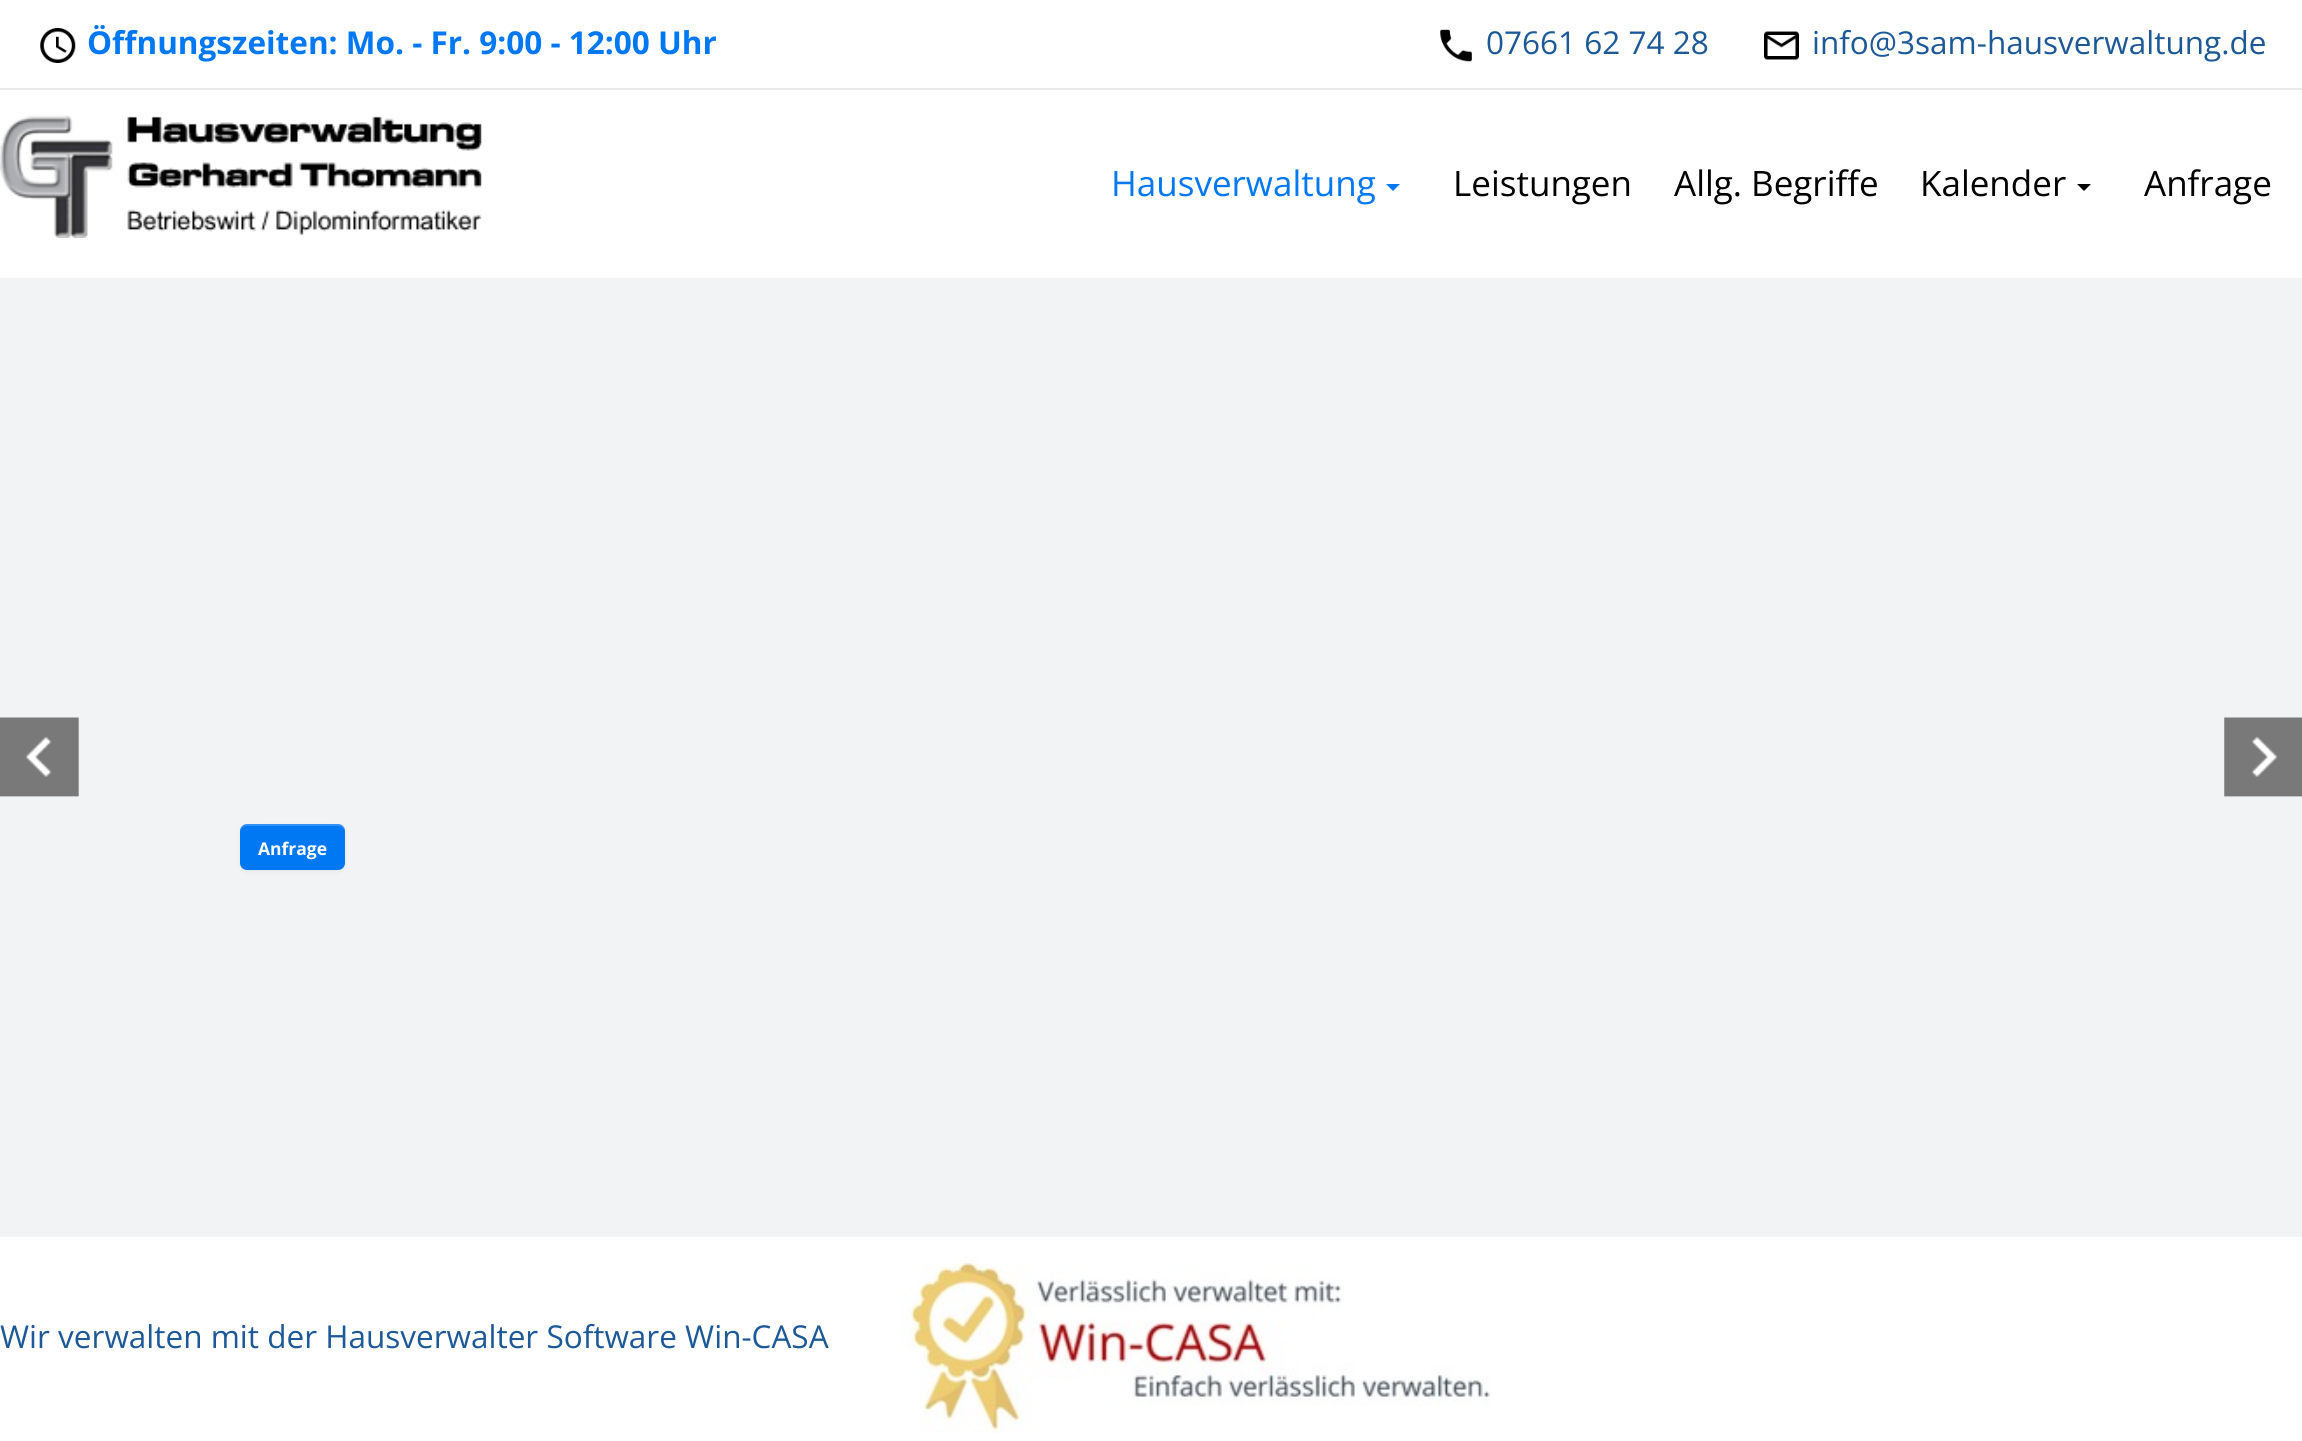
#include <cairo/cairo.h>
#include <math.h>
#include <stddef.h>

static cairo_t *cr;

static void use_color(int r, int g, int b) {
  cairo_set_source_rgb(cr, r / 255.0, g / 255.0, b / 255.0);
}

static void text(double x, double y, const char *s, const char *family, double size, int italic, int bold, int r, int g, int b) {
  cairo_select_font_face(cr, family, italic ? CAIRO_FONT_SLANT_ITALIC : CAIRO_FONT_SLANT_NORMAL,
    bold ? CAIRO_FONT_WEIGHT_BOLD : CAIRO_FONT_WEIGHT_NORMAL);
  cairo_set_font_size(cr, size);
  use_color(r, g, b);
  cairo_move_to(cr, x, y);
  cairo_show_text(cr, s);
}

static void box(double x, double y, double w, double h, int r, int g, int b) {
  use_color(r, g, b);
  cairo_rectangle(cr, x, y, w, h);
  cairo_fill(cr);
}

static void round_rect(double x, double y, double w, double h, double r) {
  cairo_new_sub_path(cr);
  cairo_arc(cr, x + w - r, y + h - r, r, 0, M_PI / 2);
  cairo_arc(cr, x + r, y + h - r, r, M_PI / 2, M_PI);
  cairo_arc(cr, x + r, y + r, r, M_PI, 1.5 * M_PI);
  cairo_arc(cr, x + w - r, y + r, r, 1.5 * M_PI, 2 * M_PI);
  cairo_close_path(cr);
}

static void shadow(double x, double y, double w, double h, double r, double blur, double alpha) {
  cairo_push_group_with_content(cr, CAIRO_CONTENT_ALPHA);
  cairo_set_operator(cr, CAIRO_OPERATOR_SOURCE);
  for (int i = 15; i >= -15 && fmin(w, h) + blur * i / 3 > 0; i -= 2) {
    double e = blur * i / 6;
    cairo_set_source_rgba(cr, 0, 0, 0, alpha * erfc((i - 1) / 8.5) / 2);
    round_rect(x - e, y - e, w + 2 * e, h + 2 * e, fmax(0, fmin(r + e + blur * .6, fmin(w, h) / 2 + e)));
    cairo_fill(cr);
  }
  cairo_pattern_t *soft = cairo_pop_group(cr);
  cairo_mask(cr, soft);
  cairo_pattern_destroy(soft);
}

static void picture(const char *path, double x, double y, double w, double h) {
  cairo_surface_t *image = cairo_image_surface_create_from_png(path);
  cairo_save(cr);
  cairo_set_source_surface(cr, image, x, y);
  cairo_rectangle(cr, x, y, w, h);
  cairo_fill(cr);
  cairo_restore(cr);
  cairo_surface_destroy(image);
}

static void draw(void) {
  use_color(255, 255, 255);
  cairo_paint(cr);
  box(0, 88, 2302, 2, 234, 234, 234);
  picture("img_01.png", 40, 28, 36, 35);
  picture("img_02.png", 1440, 29, 32, 33);
  picture("img_03.png", 1764, 31, 35, 29);
  picture("img_04.png", 0, 115, 482, 123);
  use_color(0, 120, 243);
  cairo_new_path(cr);
  cairo_move_to(cr, 1386, 184);
  cairo_line_to(cr, 1400, 184);
  cairo_line_to(cr, 1393, 191);
  cairo_close_path(cr);
  cairo_fill(cr);
  use_color(0, 0, 0);
  cairo_new_path(cr);
  cairo_move_to(cr, 2077, 184);
  cairo_line_to(cr, 2091, 184);
  cairo_line_to(cr, 2084, 191);
  cairo_close_path(cr);
  cairo_fill(cr);
  box(0, 278, 2302, 959, 242, 243, 245);
  picture("img_05.png", 0, 717, 79, 80);
  picture("img_06.png", 2224, 717, 78, 80);
  use_color(0, 0, 0);
  shadow(240, 826, 105, 46, 7, 2, 0.05);
  use_color(0, 120, 243);
  round_rect(240, 824, 105, 46, 7);
  cairo_fill(cr);
  cairo_set_source_rgba(cr, 1, 1, 1, 0.2);
  cairo_new_path(cr);
  cairo_move_to(cr, 247, 826);
  cairo_line_to(cr, 338, 826);
  cairo_curve_to(cr, 342, 826, 345, 829, 345, 833);
  cairo_curve_to(cr, 345, 820, 333, 824, 323, 824);
  cairo_line_to(cr, 262, 824);
  cairo_curve_to(cr, 252, 824, 240, 820, 240, 833);
  cairo_curve_to(cr, 240, 829, 243, 826, 247, 826);
  cairo_close_path(cr);
  cairo_fill(cr);
  picture("img_07.png", 900, 1257, 591, 176);
  text(87, 54, "Öffnungszeiten: Mo. - Fr. 9:00 - 12:00 Uhr", "Open Sans", 31.5, 0, 1, 0, 120, 243);
  text(1486, 54, "07661 62 74 28", "Open Sans", 31.5, 0, 0, 28, 89, 150);
  text(1812, 54, "info@3sam-hausverwaltung.de", "Open Sans", 31.5, 0, 0, 28, 89, 150);
  text(1111, 196, "Hausverwaltung", "Open Sans", 35, 0, 0, 0, 120, 243);
  text(1453, 196, "Leistungen", "Open Sans", 35, 0, 0, 0, 0, 0);
  text(1674, 196, "Allg. Begriffe", "Open Sans", 35, 0, 0, 0, 0, 0);
  text(1920, 196, "Kalender", "Open Sans", 35, 0, 0, 0, 0, 0);
  text(2144, 196, "Anfrage", "Open Sans", 35, 0, 0, 0, 0, 0);
  text(258, 855, "Anfrage", "Open Sans", 17.5, 0, 1, 255, 255, 255);
  text(0, 1348, "Wir verwalten mit der Hausverwalter Software Win-CASA", "Open Sans", 31.5, 0, 0, 28, 89, 150);
}

int main(void) {
  cairo_surface_t *surface = cairo_image_surface_create(CAIRO_FORMAT_RGB24, 2302, 1441);
  cr = cairo_create(surface);
  cairo_font_options_t *options = cairo_font_options_create();
  cairo_font_options_set_hint_metrics(options, CAIRO_HINT_METRICS_OFF);
  cairo_font_options_set_hint_style(options, CAIRO_HINT_STYLE_NONE);
  cairo_set_font_options(cr, options);
  cairo_set_miter_limit(cr, 4);
  draw();
  cairo_surface_write_to_png(surface, "out.png");
  cairo_font_options_destroy(options);
  cairo_destroy(cr);
  cairo_surface_destroy(surface);
  return 0;
}
